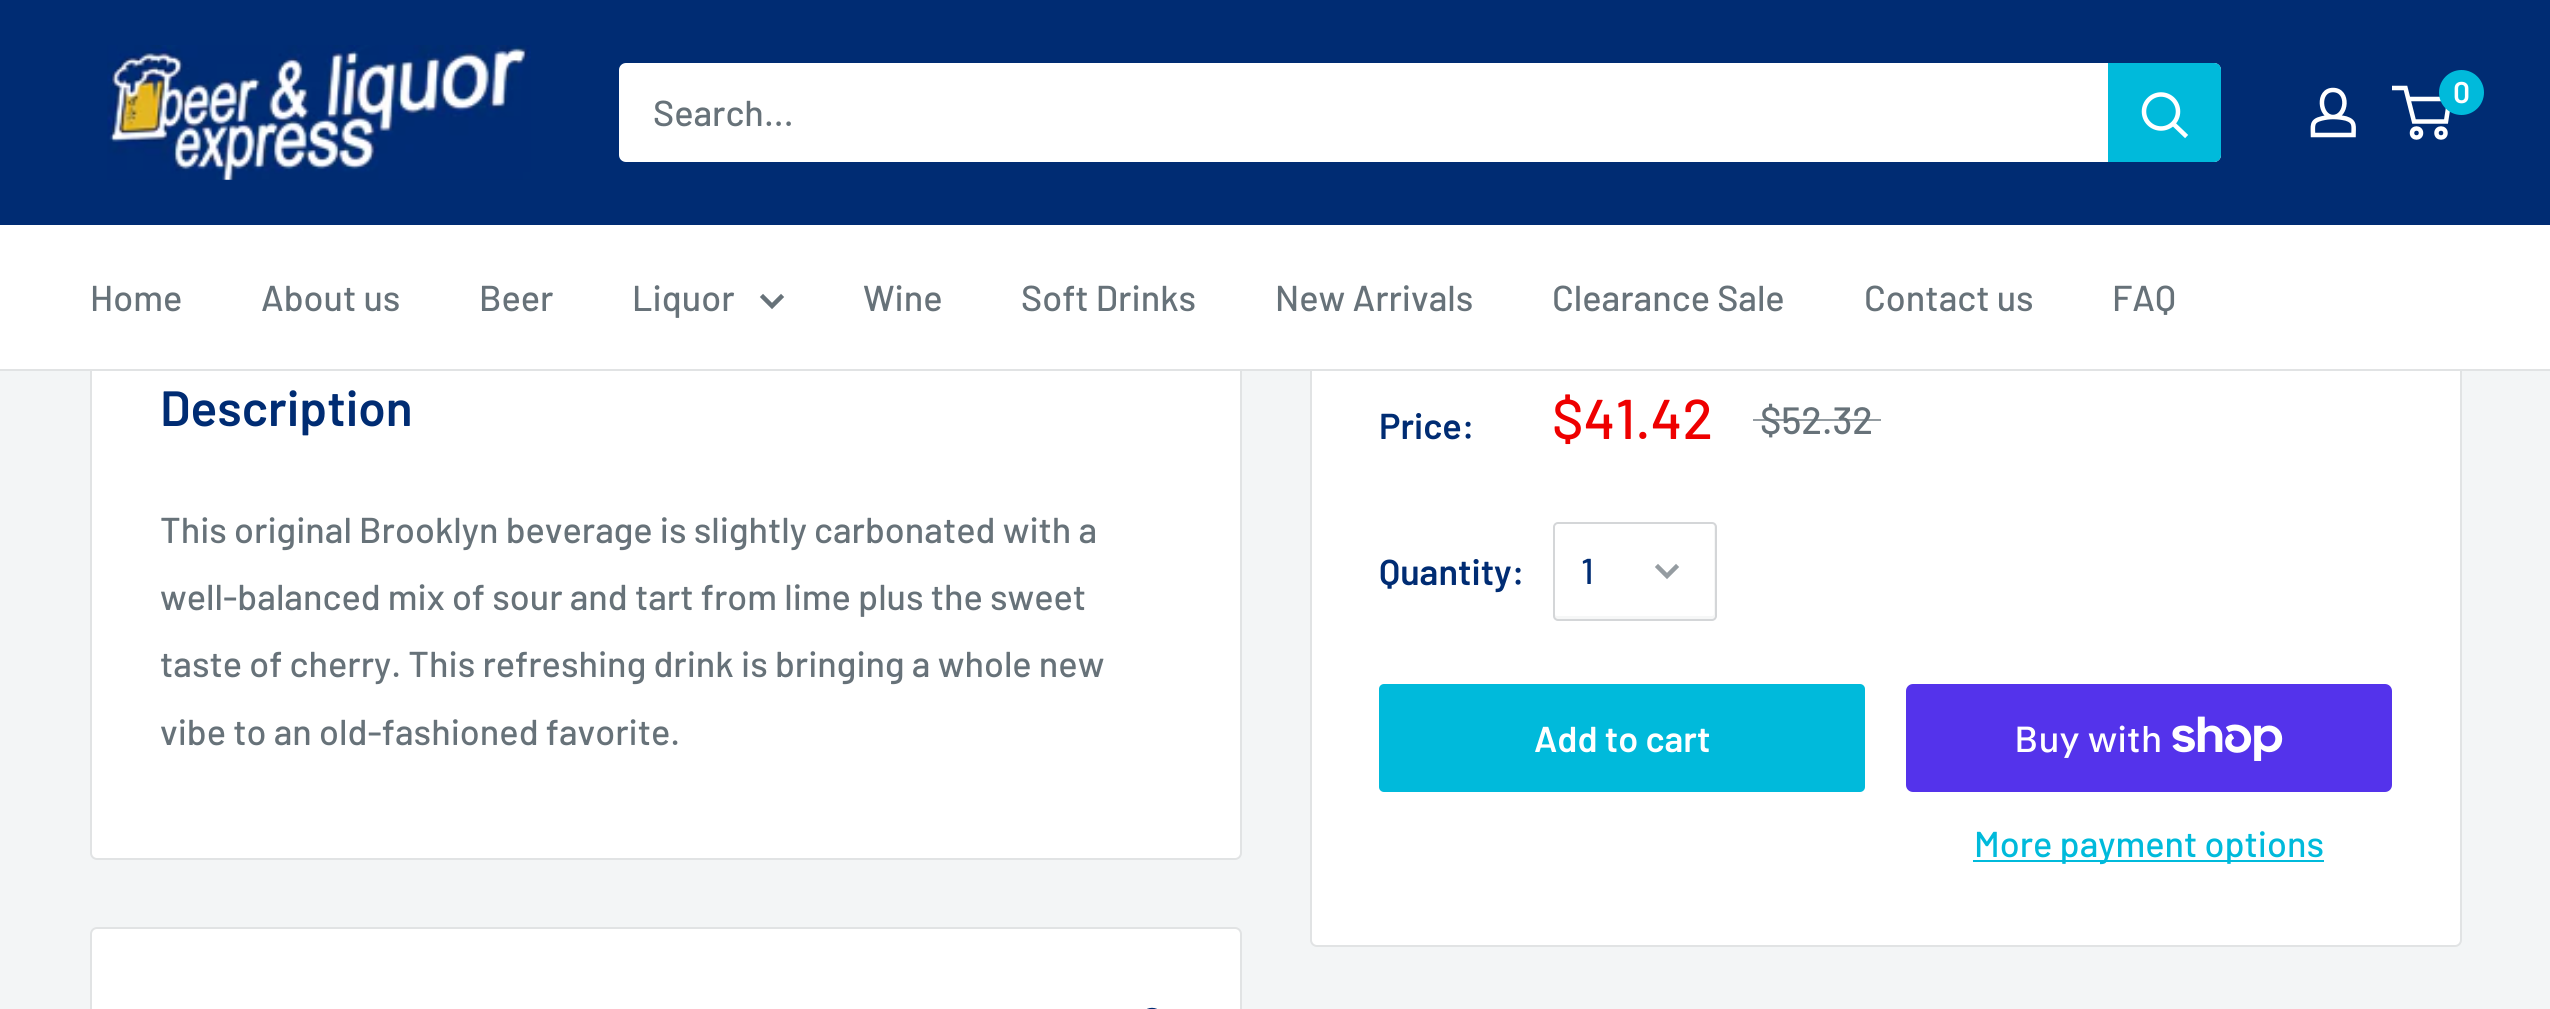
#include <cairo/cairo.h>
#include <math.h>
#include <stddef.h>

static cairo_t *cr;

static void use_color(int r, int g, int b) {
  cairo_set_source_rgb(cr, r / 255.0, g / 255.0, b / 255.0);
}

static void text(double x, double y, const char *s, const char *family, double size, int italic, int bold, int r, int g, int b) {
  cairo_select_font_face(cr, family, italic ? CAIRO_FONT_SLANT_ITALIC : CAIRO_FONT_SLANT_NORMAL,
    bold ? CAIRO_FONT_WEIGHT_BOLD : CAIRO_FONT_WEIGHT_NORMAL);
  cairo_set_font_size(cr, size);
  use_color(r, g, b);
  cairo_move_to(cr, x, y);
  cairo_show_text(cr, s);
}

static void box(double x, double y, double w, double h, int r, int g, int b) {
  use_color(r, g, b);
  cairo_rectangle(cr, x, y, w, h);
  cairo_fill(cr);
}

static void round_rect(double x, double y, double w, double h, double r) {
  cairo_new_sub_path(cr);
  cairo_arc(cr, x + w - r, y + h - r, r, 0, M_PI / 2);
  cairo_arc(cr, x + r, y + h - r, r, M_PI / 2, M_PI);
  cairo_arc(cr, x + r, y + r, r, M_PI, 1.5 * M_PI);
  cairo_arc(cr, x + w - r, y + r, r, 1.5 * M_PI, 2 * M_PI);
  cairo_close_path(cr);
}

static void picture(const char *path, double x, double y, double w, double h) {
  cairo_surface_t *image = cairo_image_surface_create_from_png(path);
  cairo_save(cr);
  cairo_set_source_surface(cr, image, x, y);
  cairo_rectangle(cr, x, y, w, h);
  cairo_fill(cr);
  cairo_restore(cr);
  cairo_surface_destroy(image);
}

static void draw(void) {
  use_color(243, 245, 246);
  cairo_paint(cr);
  use_color(255, 255, 255);
  round_rect(1311, -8, 1150, 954, 6);
  cairo_fill_preserve(cr);
  use_color(225, 227, 228);
  cairo_stroke(cr);
  box(0, 0, 2550, 225, 0, 44, 115);
  picture("img_01.png", 107, 45, 424, 135);
  cairo_new_path(cr);
  cairo_move_to(cr, 2333, 117);
  cairo_curve_to(cr, 2337.5, 117, 2341.5, 117.5, 2346, 118.5);
  cairo_curve_to(cr, 2355.5, 121.5, 2353.5, 126.5, 2353.5, 135);
  cairo_line_to(cr, 2313, 135);
  cairo_curve_to(cr, 2313, 126, 2311, 121, 2321.5, 118.5);
  cairo_curve_to(cr, 2325.5, 117.5, 2329.5, 117, 2333, 117);
  cairo_close_path(cr);
  cairo_move_to(cr, 2333, 117);
  cairo_curve_to(cr, 2319.5, 117, 2317, 90, 2333, 90);
  cairo_curve_to(cr, 2349.5, 90, 2347, 117, 2333, 117);
  cairo_close_path(cr);
  use_color(255, 255, 255);
  cairo_set_line_width(cr, 4.5);
  cairo_stroke(cr);
  cairo_arc(cr, 2416.5, 133, 4.5, 0, 2 * M_PI);
  cairo_stroke(cr);
  cairo_arc(cr, 2441, 133, 4.5, 0, 2 * M_PI);
  cairo_stroke(cr);
  cairo_new_path(cr);
  cairo_move_to(cr, 2408, 99);
  cairo_line_to(cr, 2449.5, 99);
  cairo_line_to(cr, 2446, 121.5);
  cairo_line_to(cr, 2414, 121.5);
  cairo_line_to(cr, 2405.5, 88);
  cairo_line_to(cr, 2392, 88);
  cairo_stroke(cr);
  use_color(0, 186, 219);
  cairo_arc(cr, 2461.5, 92.5, 22.5, 0, 2 * M_PI);
  cairo_fill(cr);
  use_color(255, 255, 255);
  round_rect(619, 63, 1602, 99, 7);
  cairo_fill(cr);
  use_color(0, 186, 219);
  cairo_new_path(cr);
  cairo_move_to(cr, 2108, 63);
  cairo_line_to(cr, 2214, 63);
  cairo_curve_to(cr, 2218, 63, 2221, 66, 2221, 70);
  cairo_line_to(cr, 2221, 155);
  cairo_curve_to(cr, 2221, 159, 2218, 162, 2214, 162);
  cairo_line_to(cr, 2108, 162);
  cairo_close_path(cr);
  cairo_fill(cr);
  cairo_new_path(cr);
  cairo_move_to(cr, 2185, 135);
  cairo_line_to(cr, 2173.5, 124);
  use_color(255, 255, 255);
  cairo_set_line_cap(cr, CAIRO_LINE_CAP_SQUARE);
  cairo_stroke(cr);
  cairo_arc(cr, 2161, 111.5, 17, 0, 2 * M_PI);
  cairo_set_line_cap(cr, CAIRO_LINE_CAP_BUTT);
  cairo_stroke(cr);
  round_rect(91, 300, 1150, 559, 6);
  cairo_fill_preserve(cr);
  use_color(225, 227, 228);
  cairo_set_line_width(cr, 2);
  cairo_stroke(cr);
  box(0, 225, 2550, 144, 255, 255, 255);
  box(0, 369, 2550, 2, 225, 227, 228);
  cairo_new_path(cr);
  cairo_move_to(cr, 781, 297);
  cairo_line_to(cr, 772, 306);
  cairo_line_to(cr, 763, 297);
  use_color(103, 114, 121);
  cairo_set_line_width(cr, 4.5);
  cairo_set_line_cap(cr, CAIRO_LINE_CAP_SQUARE);
  cairo_stroke(cr);
  use_color(246, 247, 247);
  cairo_new_path(cr);
  cairo_move_to(cr, 1555, 614);
  cairo_line_to(cr, 1555, 617);
  cairo_curve_to(cr, 1555, 618, 1556, 619, 1557, 619);
  cairo_line_to(cr, 1713, 619);
  cairo_curve_to(cr, 1714, 619, 1715, 618, 1715, 617);
  cairo_line_to(cr, 1715, 526);
  cairo_curve_to(cr, 1715, 525, 1715, 525, 1714, 524);
  cairo_line_to(cr, 1714, 614);
  cairo_curve_to(cr, 1714, 615, 1713, 616, 1712, 616);
  cairo_line_to(cr, 1557, 616);
  cairo_curve_to(cr, 1556, 616, 1555, 615, 1555, 614);
  cairo_close_path(cr);
  cairo_fill(cr);
  round_rect(1554, 523, 162, 97, 4);
  use_color(212, 214, 216);
  cairo_set_line_width(cr, 2);
  cairo_set_line_cap(cr, CAIRO_LINE_CAP_BUTT);
  cairo_stroke(cr);
  cairo_new_path(cr);
  cairo_move_to(cr, 1676, 567);
  cairo_line_to(cr, 1667, 576);
  cairo_line_to(cr, 1658, 567);
  use_color(149, 156, 161);
  cairo_set_line_width(cr, 4.5);
  cairo_set_line_cap(cr, CAIRO_LINE_CAP_SQUARE);
  cairo_stroke(cr);
  use_color(0, 186, 219);
  round_rect(1379, 684, 486, 108, 5);
  cairo_fill(cr);
  use_color(84, 51, 235);
  round_rect(1906, 684, 486, 108, 7);
  cairo_fill(cr);
  picture("img_02.png", 2172, 716, 111, 45);
  box(1973, 860, 351, 2, 0, 186, 219);
  use_color(255, 255, 255);
  round_rect(91, 928, 1150, 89, 6);
  cairo_fill_preserve(cr);
  use_color(225, 227, 228);
  cairo_set_line_width(cr, 2);
  cairo_set_line_cap(cr, CAIRO_LINE_CAP_BUTT);
  cairo_stroke(cr);
  picture("img_03.png", 1147, 1007, 10, 2);
  text(2453, 103, "0", "Barlow SemiBold", 30, 0, 0, 255, 255, 255);
  text(653, 126, "Search...", "Barlow Medium", 36, 0, 0, 103, 114, 121);
  text(90, 311, "Home", "Barlow Medium", 36, 0, 0, 103, 114, 121);
  text(261, 311, "About us", "Barlow Medium", 36, 0, 0, 103, 114, 121);
  text(479, 311, "Beer", "Barlow Medium", 36, 0, 0, 103, 114, 121);
  text(632, 311, "Liquor", "Barlow Medium", 36, 0, 0, 103, 114, 121);
  text(863, 311, "Wine", "Barlow Medium", 36, 0, 0, 103, 114, 121);
  text(1021, 311, "Soft Drinks", "Barlow Medium", 36, 0, 0, 103, 114, 121);
  text(1275, 311, "New Arrivals", "Barlow Medium", 36, 0, 0, 103, 114, 121);
  text(1552, 311, "Clearance Sale", "Barlow Medium", 36, 0, 0, 103, 114, 121);
  text(1864, 311, "Contact us", "Barlow Medium", 36, 0, 0, 103, 114, 121);
  text(2112, 311, "FAQ", "Barlow Medium", 36, 0, 0, 103, 114, 121);
  text(160, 426, "Description", "Barlow SemiBold", 49.5, 0, 0, 0, 44, 115);
  text(160, 543, "This original Brooklyn beverage is slightly carbonated with a", "Barlow Medium", 36, 0, 0, 103, 114, 121);
  text(160, 610, "well-balanced mix of sour and tart from lime plus the sweet", "Barlow Medium", 36, 0, 0, 103, 114, 121);
  text(160, 677, "taste of cherry. This refreshing drink is bringing a whole new", "Barlow Medium", 36, 0, 0, 103, 114, 121);
  text(160, 745, "vibe to an old-fashioned favorite.", "Barlow Medium", 36, 0, 0, 103, 114, 121);
  text(1379, 439, "Price:", "Barlow SemiBold", 36, 0, 0, 0, 44, 115);
  text(1552, 439, "$41.42", "Barlow Medium", 56, 0, 0, 238, 0, 0);
  text(1760, 434, "$52.32", "Barlow Medium", 38, 0, 0, 103, 114, 121);
  cairo_set_source_rgba(cr, 0.404, 0.447, 0.475, 0.7);
  cairo_rectangle(cr, 1753, 419, 128, 2);
  cairo_fill(cr);
  text(1379, 585, "Quantity:", "Barlow SemiBold", 36, 0, 0, 0, 44, 115);
  text(1581, 584, "1", "Barlow Medium", 36, 0, 0, 0, 44, 115);
  text(1534, 752, "Add to cart", "Barlow SemiBold", 36, 0, 0, 255, 255, 255);
  text(2014, 752, "Buy with", "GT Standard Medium", 36, 0, 0, 255, 255, 255);
  text(1974, 857, "More payment options", "Barlow Medium", 36, 0, 0, 0, 186, 219);
}

int main(void) {
  cairo_surface_t *surface = cairo_image_surface_create(CAIRO_FORMAT_RGB24, 2550, 1009);
  cr = cairo_create(surface);
  cairo_font_options_t *options = cairo_font_options_create();
  cairo_font_options_set_hint_metrics(options, CAIRO_HINT_METRICS_OFF);
  cairo_font_options_set_hint_style(options, CAIRO_HINT_STYLE_NONE);
  cairo_set_font_options(cr, options);
  cairo_set_miter_limit(cr, 4);
  draw();
  cairo_surface_write_to_png(surface, "out.png");
  cairo_font_options_destroy(options);
  cairo_destroy(cr);
  cairo_surface_destroy(surface);
  return 0;
}
